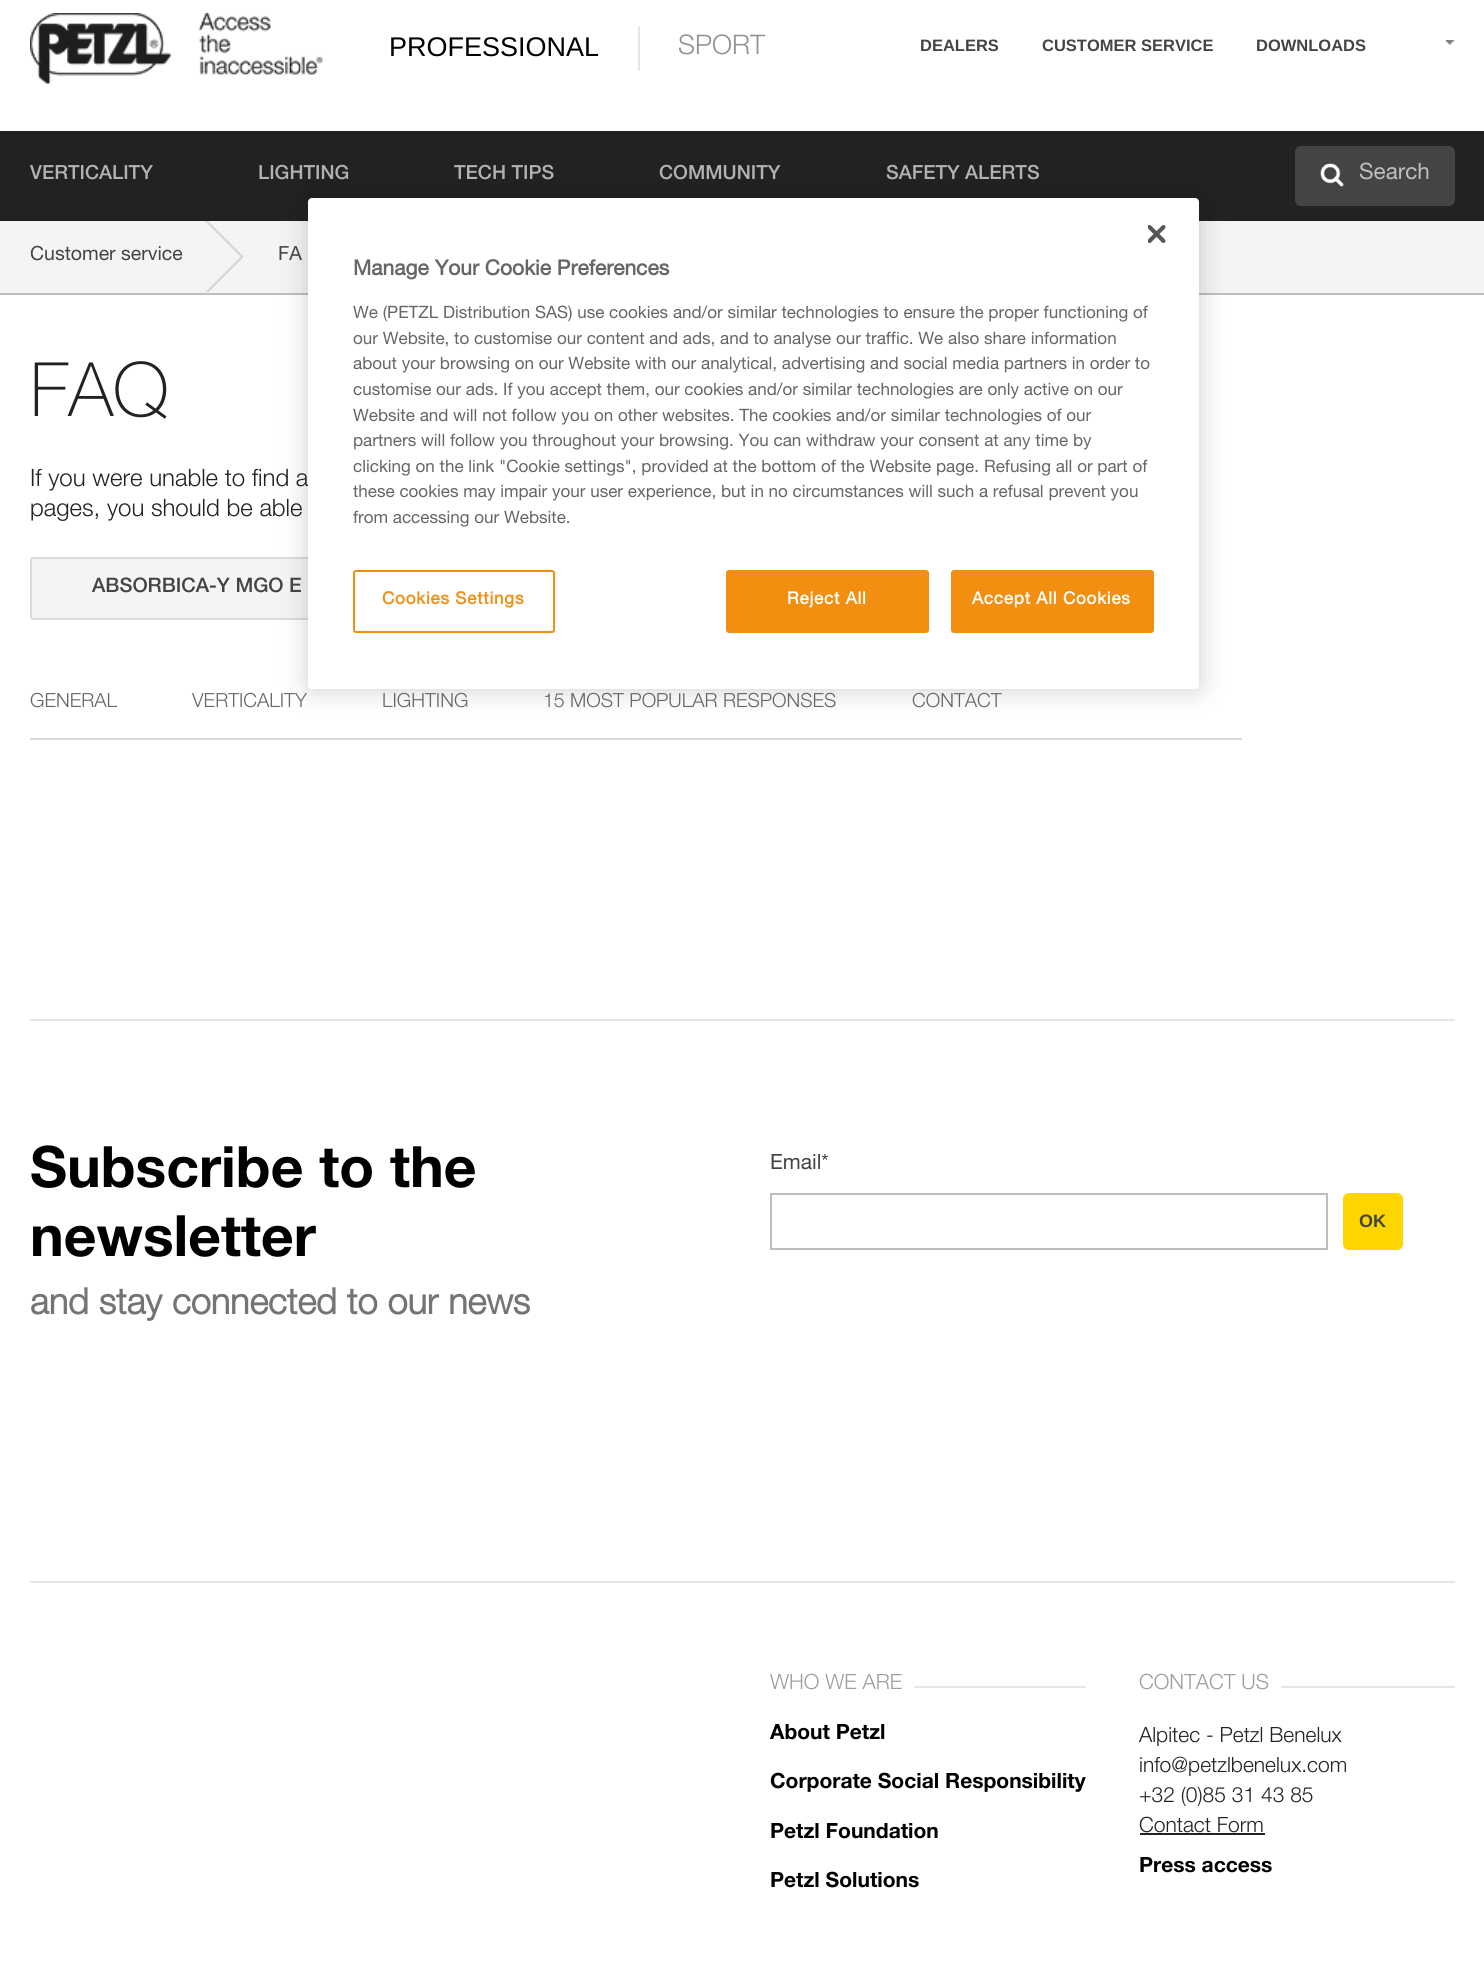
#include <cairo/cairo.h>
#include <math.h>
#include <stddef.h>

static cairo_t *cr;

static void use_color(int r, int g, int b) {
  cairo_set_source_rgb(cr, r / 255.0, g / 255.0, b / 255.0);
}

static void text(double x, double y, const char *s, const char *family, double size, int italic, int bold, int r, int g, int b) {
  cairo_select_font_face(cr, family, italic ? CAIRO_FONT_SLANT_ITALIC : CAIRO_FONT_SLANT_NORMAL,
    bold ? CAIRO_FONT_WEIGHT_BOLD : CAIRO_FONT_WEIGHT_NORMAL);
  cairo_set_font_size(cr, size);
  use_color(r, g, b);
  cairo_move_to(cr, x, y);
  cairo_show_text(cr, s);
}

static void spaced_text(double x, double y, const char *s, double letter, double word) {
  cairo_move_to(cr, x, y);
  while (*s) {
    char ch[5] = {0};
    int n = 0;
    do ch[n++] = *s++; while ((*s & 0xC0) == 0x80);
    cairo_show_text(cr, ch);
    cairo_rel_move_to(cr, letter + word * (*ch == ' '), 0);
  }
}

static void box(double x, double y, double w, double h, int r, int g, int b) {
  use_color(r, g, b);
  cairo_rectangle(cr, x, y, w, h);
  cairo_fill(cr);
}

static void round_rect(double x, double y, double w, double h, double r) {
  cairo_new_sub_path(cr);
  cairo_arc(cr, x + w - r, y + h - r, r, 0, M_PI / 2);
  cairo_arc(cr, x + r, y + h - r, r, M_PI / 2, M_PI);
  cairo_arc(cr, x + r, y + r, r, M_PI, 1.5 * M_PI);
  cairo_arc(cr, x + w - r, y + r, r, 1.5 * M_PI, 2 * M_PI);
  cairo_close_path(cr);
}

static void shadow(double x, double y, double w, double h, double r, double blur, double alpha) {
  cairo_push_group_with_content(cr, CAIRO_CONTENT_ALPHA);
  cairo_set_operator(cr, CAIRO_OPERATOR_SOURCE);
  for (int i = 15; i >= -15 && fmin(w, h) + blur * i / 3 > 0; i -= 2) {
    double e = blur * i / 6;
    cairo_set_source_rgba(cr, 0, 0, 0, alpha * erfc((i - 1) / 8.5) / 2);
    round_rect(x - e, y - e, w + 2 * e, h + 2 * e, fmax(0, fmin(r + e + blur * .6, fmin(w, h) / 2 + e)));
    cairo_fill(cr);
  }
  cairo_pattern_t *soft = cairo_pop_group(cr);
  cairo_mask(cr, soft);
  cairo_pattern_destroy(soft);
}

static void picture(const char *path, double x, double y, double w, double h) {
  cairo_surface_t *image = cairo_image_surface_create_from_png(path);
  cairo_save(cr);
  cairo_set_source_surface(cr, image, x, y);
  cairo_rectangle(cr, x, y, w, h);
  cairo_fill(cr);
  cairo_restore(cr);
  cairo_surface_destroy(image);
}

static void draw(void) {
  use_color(255, 255, 255);
  cairo_paint(cr);
  picture("img_01.png", 30, 13, 293, 71);
  box(638, 26, 2, 45, 230, 230, 230);
  picture("img_02.png", 1446, 40, 9, 5);
  box(0, 131, 1484, 90, 34, 34, 34);
  use_color(68, 68, 68);
  round_rect(1295, 146, 160, 60, 6);
  cairo_fill(cr);
  picture("img_03.png", 1320, 163, 24, 24);
  box(0, 221, 1484, 72, 244, 244, 244);
  box(0, 293, 1484, 2, 190, 190, 190);
  picture("img_04.png", 205, 221, 38, 71);
  use_color(244, 244, 244);
  round_rect(31, 558, 339, 61, 2);
  cairo_fill_preserve(cr);
  use_color(219, 219, 219);
  cairo_stroke(cr);
  box(30, 738, 1212, 2, 219, 219, 219);
  box(30, 1019, 1425, 2, 230, 230, 230);
  cairo_rectangle(cr, 771, 1194, 556, 55);
  use_color(190, 190, 190);
  cairo_stroke(cr);
  use_color(255, 213, 0);
  round_rect(1344, 1194, 58, 55, 5);
  cairo_fill_preserve(cr);
  cairo_stroke(cr);
  box(30, 1581, 1425, 2, 230, 230, 230);
  box(914, 1686, 172, 2, 230, 230, 230);
  box(1281, 1686, 174, 2, 230, 230, 230);
  box(1140, 1833, 125, 2, 34, 34, 34);
  use_color(0, 0, 0);
  shadow(308, 198, 891, 491, 4, 13.5, 0.2);
  text(389, 56, "PROFESSIONAL", "Liberation Sans", 27, 0, 0, 0, 0, 0);
  text(678, 54, "SPORT", "Helvetica Neue Light", 27, 0, 0, 147, 146, 146);
  text(920, 51, "DEALERS", "Liberation Sans", 16.5, 0, 1, 68, 68, 68);
  text(1042, 51, "CUSTOMER SERVICE", "Liberation Sans", 16.5, 0, 1, 68, 68, 68);
  text(1256, 51, "DOWNLOADS", "Liberation Sans", 16.5, 0, 1, 68, 68, 68);
  text(30, 179, "VERTICALITY", "Helvetica Neue Medium", 19.5, 0, 0, 178, 178, 178);
  text(258, 179, "LIGHTING", "Helvetica Neue Medium", 19.5, 0, 0, 178, 178, 178);
  text(454, 179, "TECH TIPS", "Helvetica Neue Medium", 19.5, 0, 0, 178, 178, 178);
  text(659, 179, "COMMUNITY", "Helvetica Neue Medium", 19.5, 0, 0, 178, 178, 178);
  text(886, 179, "SAFETY ALERTS", "Helvetica Neue Medium", 19.5, 0, 0, 178, 178, 178);
  text(1359, 179, "Search", "Helvetica Neue", 22.5, 0, 0, 190, 190, 190);
  text(30, 260, "Customer service", "Helvetica Neue", 19.5, 0, 0, 68, 68, 68);
  text(278, 260, "FA", "Helvetica Neue", 19.5, 0, 0, 68, 68, 68);
  text(30, 416, "FAQ", "Helvetica Neue ExtraLight", 75, 0, 0, 34, 34, 34);
  text(30, 486, "If you were unable to find a", "Helvetica Neue Light", 24, 0, 0, 34, 34, 34);
  text(30, 516, "pages, you should be able", "Helvetica Neue Light", 24, 0, 0, 34, 34, 34);
  text(92, 592, "ABSORBICA-Y MGO E", "Helvetica Neue Medium", 20, 0, 0, 68, 68, 68);
  text(30, 707, "GENERAL", "Helvetica Neue Light", 19.5, 0, 0, 102, 102, 102);
  text(192, 707, "VERTICALITY", "Helvetica Neue Light", 19.5, 0, 0, 102, 102, 102);
  text(382, 707, "LIGHTING", "Helvetica Neue Light", 19.5, 0, 0, 102, 102, 102);
  text(543, 707, "15 MOST POPULAR RESPONSES", "Helvetica Neue Light", 19.5, 0, 0, 102, 102, 102);
  text(912, 707, "CONTACT", "Helvetica Neue Light", 19.5, 0, 0, 102, 102, 102);
  text(30, 1187, "Subscribe to the", "Helvetica Neue", 57, 0, 1, 0, 0, 0);
  text(30, 1256, "newsletter", "Helvetica Neue", 57, 0, 1, 0, 0, 0);
  text(30, 1314, "and stay connected to our news", "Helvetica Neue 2", 36, 0, 1, 116, 116, 116);
  text(770, 1169, "Email*", "Helvetica Neue", 21, 0, 0, 68, 68, 68);
  text(1359, 1227, "OK", "Liberation Sans", 18, 0, 1, 68, 68, 68);
  text(770, 1689, "WHO WE ARE", "Helvetica Neue Light", 21, 0, 0, 157, 158, 157);
  text(770, 1739, "About Petzl", "Helvetica Neue", 21, 0, 1, 0, 0, 0);
  text(770, 1788, "Corporate Social Responsibility", "Helvetica Neue", 21, 0, 1, 0, 0, 0);
  text(770, 1838, "Petzl Foundation", "Helvetica Neue", 21, 0, 1, 0, 0, 0);
  text(770, 1887, "Petzl Solutions", "Helvetica Neue", 21, 0, 1, 0, 0, 0);
  text(1139, 1689, "CONTACT US", "Helvetica Neue Light", 21, 0, 0, 157, 158, 157);
  text(1139, 1742, "Alpitec - Petzl Benelux", "Helvetica Neue Light", 21, 0, 0, 34, 34, 34);
  text(1139, 1772, "info@petzlbenelux.com", "Helvetica Neue Light", 21, 0, 0, 34, 34, 34);
  text(1139, 1802, "+32 (0)85 31 43 85", "Helvetica Neue Light", 21, 0, 0, 34, 34, 34);
  text(1139, 1832, "Contact Form", "Helvetica Neue Light", 21, 0, 0, 34, 34, 34);
  text(1139, 1872, "Press access", "Helvetica Neue", 21, 0, 1, 0, 0, 0);
  use_color(255, 255, 255);
  round_rect(308, 198, 891, 491, 4);
  cairo_fill(cr);
  picture("img_05.png", 1148, 225, 18, 18);
  text(353, 275, "Manage Your Cookie Preferences", "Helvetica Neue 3", 21, 0, 1, 102, 102, 102);
  text(353, 318, "We (PETZL Distribution SAS) use cookies and/or similar technologies to ensure the proper functioning of", "Helvetica Neue", 17.05, 0, 0, 102, 102, 102);
  text(353, 344, "our Website, to customise our content and ads, and to analyse our traffic. We also share information", "Helvetica Neue", 17.05, 0, 0, 102, 102, 102);
  text(353, 369, "about your browsing on our Website with our analytical, advertising and social media partners in order to", "Helvetica Neue", 17.05, 0, 0, 102, 102, 102);
  text(353, 395, "customise our ads. If you accept them, our cookies and/or similar technologies are only active on our", "Helvetica Neue", 17.05, 0, 0, 102, 102, 102);
  text(353, 421, "Website and will not follow you on other websites. The cookies and/or similar technologies of our", "Helvetica Neue", 17.05, 0, 0, 102, 102, 102);
  text(353, 446, "partners will follow you throughout your browsing. You can withdraw your consent at any time by", "Helvetica Neue", 17.05, 0, 0, 102, 102, 102);
  text(353, 472, "clicking on the link \"Cookie settings\", provided at the bottom of the Website page.", "Helvetica Neue", 17.05, 0, 0, 102, 102, 102);
  text(984, 472, "Refusing all or part of", "Helvetica Neue", 17.05, 0, 0, 102, 102, 102);
  text(353, 497, "these cookies may impair your user experience, but in no circumstances will such a refusal prevent you", "Helvetica Neue", 17.05, 0, 0, 102, 102, 102);
  text(353, 523, "from accessing our Website.", "Helvetica Neue", 17.05, 0, 0, 102, 102, 102);
  round_rect(354, 571, 200, 61, 2);
  use_color(243, 143, 16);
  cairo_stroke(cr);
  cairo_select_font_face(cr, "Helvetica Neue 3", CAIRO_FONT_SLANT_NORMAL, CAIRO_FONT_WEIGHT_BOLD);
  spaced_text(382, 604, "Cookies Settings", 0.8, 0);
  round_rect(727, 571, 201, 61, 2);
  cairo_fill_preserve(cr);
  cairo_stroke(cr);
  use_color(255, 255, 255);
  spaced_text(787, 604, "Reject All", 0.8, 0);
  use_color(243, 143, 16);
  round_rect(952, 571, 201, 61, 2);
  cairo_fill_preserve(cr);
  cairo_stroke(cr);
  use_color(255, 255, 255);
  spaced_text(972, 604, "Accept All Cookies", 0.8, 0);
}

int main(void) {
  cairo_surface_t *surface = cairo_image_surface_create(CAIRO_FORMAT_RGB24, 1484, 1974);
  cr = cairo_create(surface);
  cairo_font_options_t *options = cairo_font_options_create();
  cairo_font_options_set_hint_metrics(options, CAIRO_HINT_METRICS_OFF);
  cairo_font_options_set_hint_style(options, CAIRO_HINT_STYLE_NONE);
  cairo_set_font_options(cr, options);
  cairo_set_miter_limit(cr, 4);
  draw();
  cairo_surface_write_to_png(surface, "out.png");
  cairo_font_options_destroy(options);
  cairo_destroy(cr);
  cairo_surface_destroy(surface);
  return 0;
}
